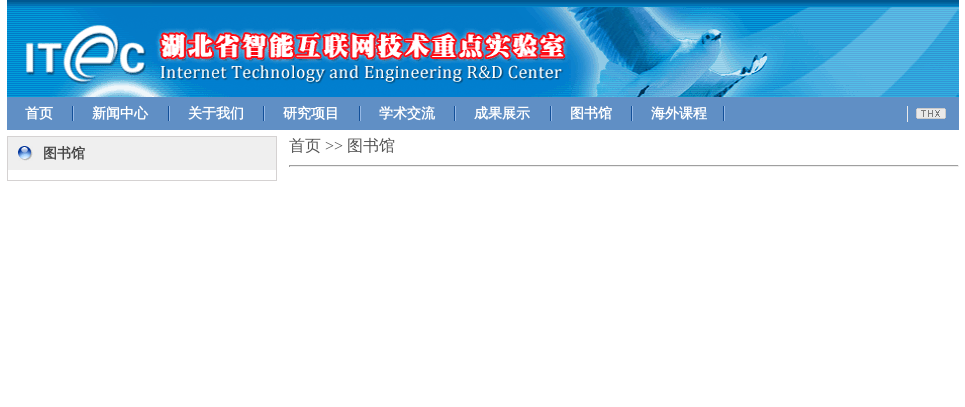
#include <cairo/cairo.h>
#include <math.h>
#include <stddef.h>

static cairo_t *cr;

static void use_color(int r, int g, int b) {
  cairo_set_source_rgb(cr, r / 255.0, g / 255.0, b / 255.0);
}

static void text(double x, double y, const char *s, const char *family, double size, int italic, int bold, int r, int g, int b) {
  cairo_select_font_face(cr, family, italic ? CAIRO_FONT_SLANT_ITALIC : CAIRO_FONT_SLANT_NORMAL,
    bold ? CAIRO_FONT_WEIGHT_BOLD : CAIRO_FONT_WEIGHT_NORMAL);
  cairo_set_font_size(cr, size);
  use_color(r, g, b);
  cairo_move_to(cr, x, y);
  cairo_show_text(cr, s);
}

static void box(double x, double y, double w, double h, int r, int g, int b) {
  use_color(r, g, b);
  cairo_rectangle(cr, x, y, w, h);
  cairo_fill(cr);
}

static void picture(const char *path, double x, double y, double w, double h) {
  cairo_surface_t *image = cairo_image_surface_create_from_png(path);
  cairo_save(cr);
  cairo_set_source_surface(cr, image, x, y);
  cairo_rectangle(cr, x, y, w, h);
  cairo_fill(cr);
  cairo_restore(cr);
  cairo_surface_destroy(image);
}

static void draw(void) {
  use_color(255, 255, 255);
  cairo_paint(cr);
  picture("img_01.png", 7, 0, 952, 97);
  box(7, 97, 952, 33, 96, 143, 197);
  picture("img_02.png", 72, 106, 2, 15);
  picture("img_02.png", 168, 106, 2, 15);
  picture("img_02.png", 263, 106, 2, 15);
  picture("img_02.png", 359, 106, 2, 15);
  picture("img_02.png", 454, 106, 2, 15);
  picture("img_02.png", 550, 106, 2, 15);
  picture("img_02.png", 631, 106, 2, 15);
  picture("img_02.png", 723, 106, 2, 15);
  picture("img_03.png", 907, 106, 39, 16);
  cairo_rectangle(cr, 7.5, 136.5, 269, 44);
  use_color(213, 210, 210);
  cairo_set_line_width(cr, 1);
  cairo_stroke(cr);
  box(8, 137, 268, 33, 239, 239, 239);
  picture("img_04.png", 18, 146, 15, 15);
  box(289, 165, 670, 1, 159, 159, 159);
  box(958, 165, 1, 2, 238, 238, 238);
  box(289, 166, 670, 1, 238, 238, 238);
  box(289, 165, 1, 2, 159, 159, 159);
  text(25, 118, "首页", "WenQuanYi Zen Hei", 14, 0, 1, 255, 255, 255);
  text(92, 118, "新闻中心", "WenQuanYi Zen Hei", 14, 0, 1, 255, 255, 255);
  text(188, 118, "关于我们", "WenQuanYi Zen Hei", 14, 0, 1, 255, 255, 255);
  text(283, 118, "研究项目", "WenQuanYi Zen Hei", 14, 0, 1, 255, 255, 255);
  text(379, 118, "学术交流", "WenQuanYi Zen Hei", 14, 0, 1, 255, 255, 255);
  text(474, 118, "成果展示", "WenQuanYi Zen Hei", 14, 0, 1, 255, 255, 255);
  text(570, 118, "图书馆", "WenQuanYi Zen Hei", 14, 0, 1, 255, 255, 255);
  text(651, 118, "海外课程", "WenQuanYi Zen Hei", 14, 0, 1, 255, 255, 255);
  text(43, 158, "图书馆", "WenQuanYi Zen Hei", 14, 0, 1, 72, 72, 72);
  text(289, 151, "首页", "WenQuanYi Zen Hei Medium", 16, 0, 0, 85, 85, 85);
  text(325, 151, ">>", "Liberation Serif", 16, 0, 0, 85, 85, 85);
  text(347, 151, "图书馆", "WenQuanYi Zen Hei Medium", 16, 0, 0, 85, 85, 85);
}

int main(void) {
  cairo_surface_t *surface = cairo_image_surface_create(CAIRO_FORMAT_RGB24, 965, 407);
  cr = cairo_create(surface);
  cairo_font_options_t *options = cairo_font_options_create();
  cairo_font_options_set_hint_metrics(options, CAIRO_HINT_METRICS_OFF);
  cairo_font_options_set_hint_style(options, CAIRO_HINT_STYLE_NONE);
  cairo_set_font_options(cr, options);
  cairo_set_miter_limit(cr, 4);
  draw();
  cairo_surface_write_to_png(surface, "out.png");
  cairo_font_options_destroy(options);
  cairo_destroy(cr);
  cairo_surface_destroy(surface);
  return 0;
}
